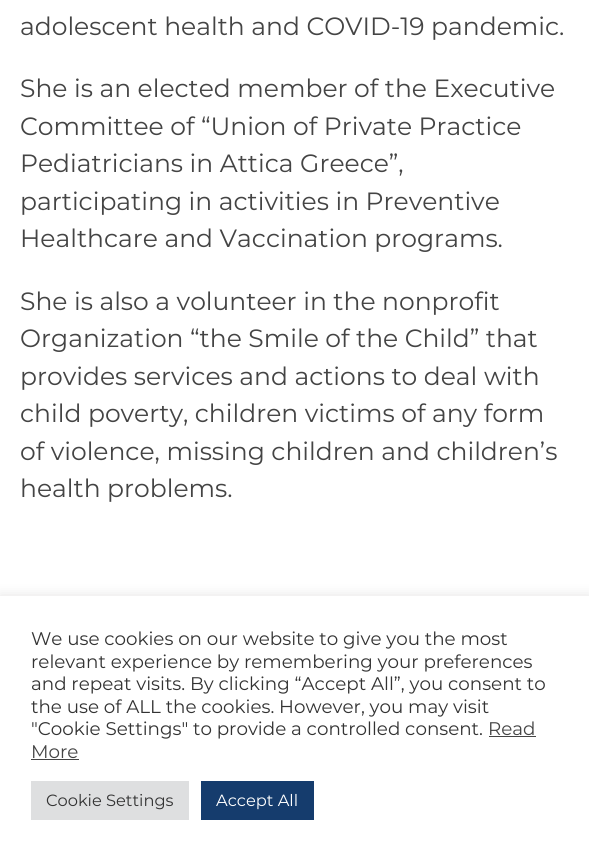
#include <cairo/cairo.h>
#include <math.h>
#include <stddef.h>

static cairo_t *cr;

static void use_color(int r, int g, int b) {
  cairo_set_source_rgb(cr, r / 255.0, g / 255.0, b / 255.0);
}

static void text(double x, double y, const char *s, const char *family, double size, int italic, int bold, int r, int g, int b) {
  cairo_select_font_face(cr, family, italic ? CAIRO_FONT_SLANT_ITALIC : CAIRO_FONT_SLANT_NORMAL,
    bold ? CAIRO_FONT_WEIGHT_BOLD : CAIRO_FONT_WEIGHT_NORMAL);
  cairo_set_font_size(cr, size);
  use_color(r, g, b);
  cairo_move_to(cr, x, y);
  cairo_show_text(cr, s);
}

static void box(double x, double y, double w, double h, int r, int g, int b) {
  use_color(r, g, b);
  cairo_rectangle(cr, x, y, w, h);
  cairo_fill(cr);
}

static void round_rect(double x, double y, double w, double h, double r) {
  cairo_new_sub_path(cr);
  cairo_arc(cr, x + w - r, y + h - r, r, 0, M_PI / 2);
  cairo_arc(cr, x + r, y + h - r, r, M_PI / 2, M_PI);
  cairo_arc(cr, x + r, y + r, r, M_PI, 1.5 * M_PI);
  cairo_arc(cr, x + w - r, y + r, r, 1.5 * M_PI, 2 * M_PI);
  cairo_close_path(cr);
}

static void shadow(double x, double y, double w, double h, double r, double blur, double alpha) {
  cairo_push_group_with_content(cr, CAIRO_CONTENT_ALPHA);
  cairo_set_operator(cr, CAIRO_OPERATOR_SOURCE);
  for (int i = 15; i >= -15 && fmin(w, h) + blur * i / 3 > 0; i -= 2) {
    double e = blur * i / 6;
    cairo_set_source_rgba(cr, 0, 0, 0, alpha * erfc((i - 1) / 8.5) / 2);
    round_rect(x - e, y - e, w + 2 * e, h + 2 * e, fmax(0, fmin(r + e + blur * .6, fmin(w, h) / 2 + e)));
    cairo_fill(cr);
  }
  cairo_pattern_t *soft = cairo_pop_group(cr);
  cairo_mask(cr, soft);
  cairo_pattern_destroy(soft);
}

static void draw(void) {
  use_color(255, 255, 255);
  cairo_paint(cr);
  use_color(172, 171, 171);
  shadow(0, 595, 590, 261, 0, 6, 0.3);
  box(0, 596, 589, 261, 255, 255, 255);
  box(489, 736, 47, 1, 68, 68, 68);
  box(31, 759, 48, 1, 68, 68, 68);
  box(31, 781, 158, 39, 222, 223, 224);
  box(201, 781, 113, 39, 21, 60, 109);
  text(20, 35, "adolescent health and COVID-19 pandemic.", "Montserrat", 25, 0, 0, 68, 68, 68);
  text(20, 97, "She is an elected member of the Executive", "Montserrat", 25, 0, 0, 68, 68, 68);
  text(20, 135, "Committee of “Union of Private Practice", "Montserrat", 25, 0, 0, 68, 68, 68);
  text(20, 172, "Pediatricians in Attica Greece”,", "Montserrat", 25, 0, 0, 68, 68, 68);
  text(20, 210, "participating in activities in Preventive", "Montserrat", 25, 0, 0, 68, 68, 68);
  text(20, 247, "Healthcare and Vaccination programs.", "Montserrat", 25, 0, 0, 68, 68, 68);
  text(20, 310, "She is also a volunteer in the nonprofit", "Montserrat", 25, 0, 0, 68, 68, 68);
  text(20, 347, "Organization “the Smile of the Child” that", "Montserrat", 25, 0, 0, 68, 68, 68);
  text(20, 385, "provides services and actions to deal with", "Montserrat", 25, 0, 0, 68, 68, 68);
  text(20, 422, "child poverty, children victims of any form", "Montserrat", 25, 0, 0, 68, 68, 68);
  text(20, 460, "of violence, missing children and children’s", "Montserrat", 25, 0, 0, 68, 68, 68);
  text(20, 497, "health problems.", "Montserrat", 25, 0, 0, 68, 68, 68);
  text(31, 645, "We use cookies on our website to give you the most", "Montserrat", 18.3, 0, 0, 51, 51, 51);
  text(31, 668, "relevant experience by remembering your preferences", "Montserrat", 18.3, 0, 0, 51, 51, 51);
  text(31, 690, "and repeat visits. By clicking “Accept All”, you consent to", "Montserrat", 18.3, 0, 0, 51, 51, 51);
  text(31, 713, "the use of ALL the cookies. However, you may visit", "Montserrat", 18.3, 0, 0, 51, 51, 51);
  text(31, 735, "\"Cookie Settings\" to provide a controlled consent.", "Montserrat", 18.3, 0, 0, 51, 51, 51);
  text(488, 735, "Read", "Montserrat", 18.3, 0, 0, 68, 68, 68);
  text(31, 758, "More", "Montserrat", 18.3, 0, 0, 68, 68, 68);
  text(46, 806, "Cookie Settings", "Montserrat", 16.25, 0, 0, 51, 51, 51);
  text(216, 806, "Accept All", "Montserrat", 16.25, 0, 0, 255, 255, 255);
}

int main(void) {
  cairo_surface_t *surface = cairo_image_surface_create(CAIRO_FORMAT_RGB24, 589, 857);
  cr = cairo_create(surface);
  cairo_font_options_t *options = cairo_font_options_create();
  cairo_font_options_set_hint_metrics(options, CAIRO_HINT_METRICS_OFF);
  cairo_font_options_set_hint_style(options, CAIRO_HINT_STYLE_NONE);
  cairo_set_font_options(cr, options);
  cairo_set_miter_limit(cr, 4);
  draw();
  cairo_surface_write_to_png(surface, "out.png");
  cairo_font_options_destroy(options);
  cairo_destroy(cr);
  cairo_surface_destroy(surface);
  return 0;
}
